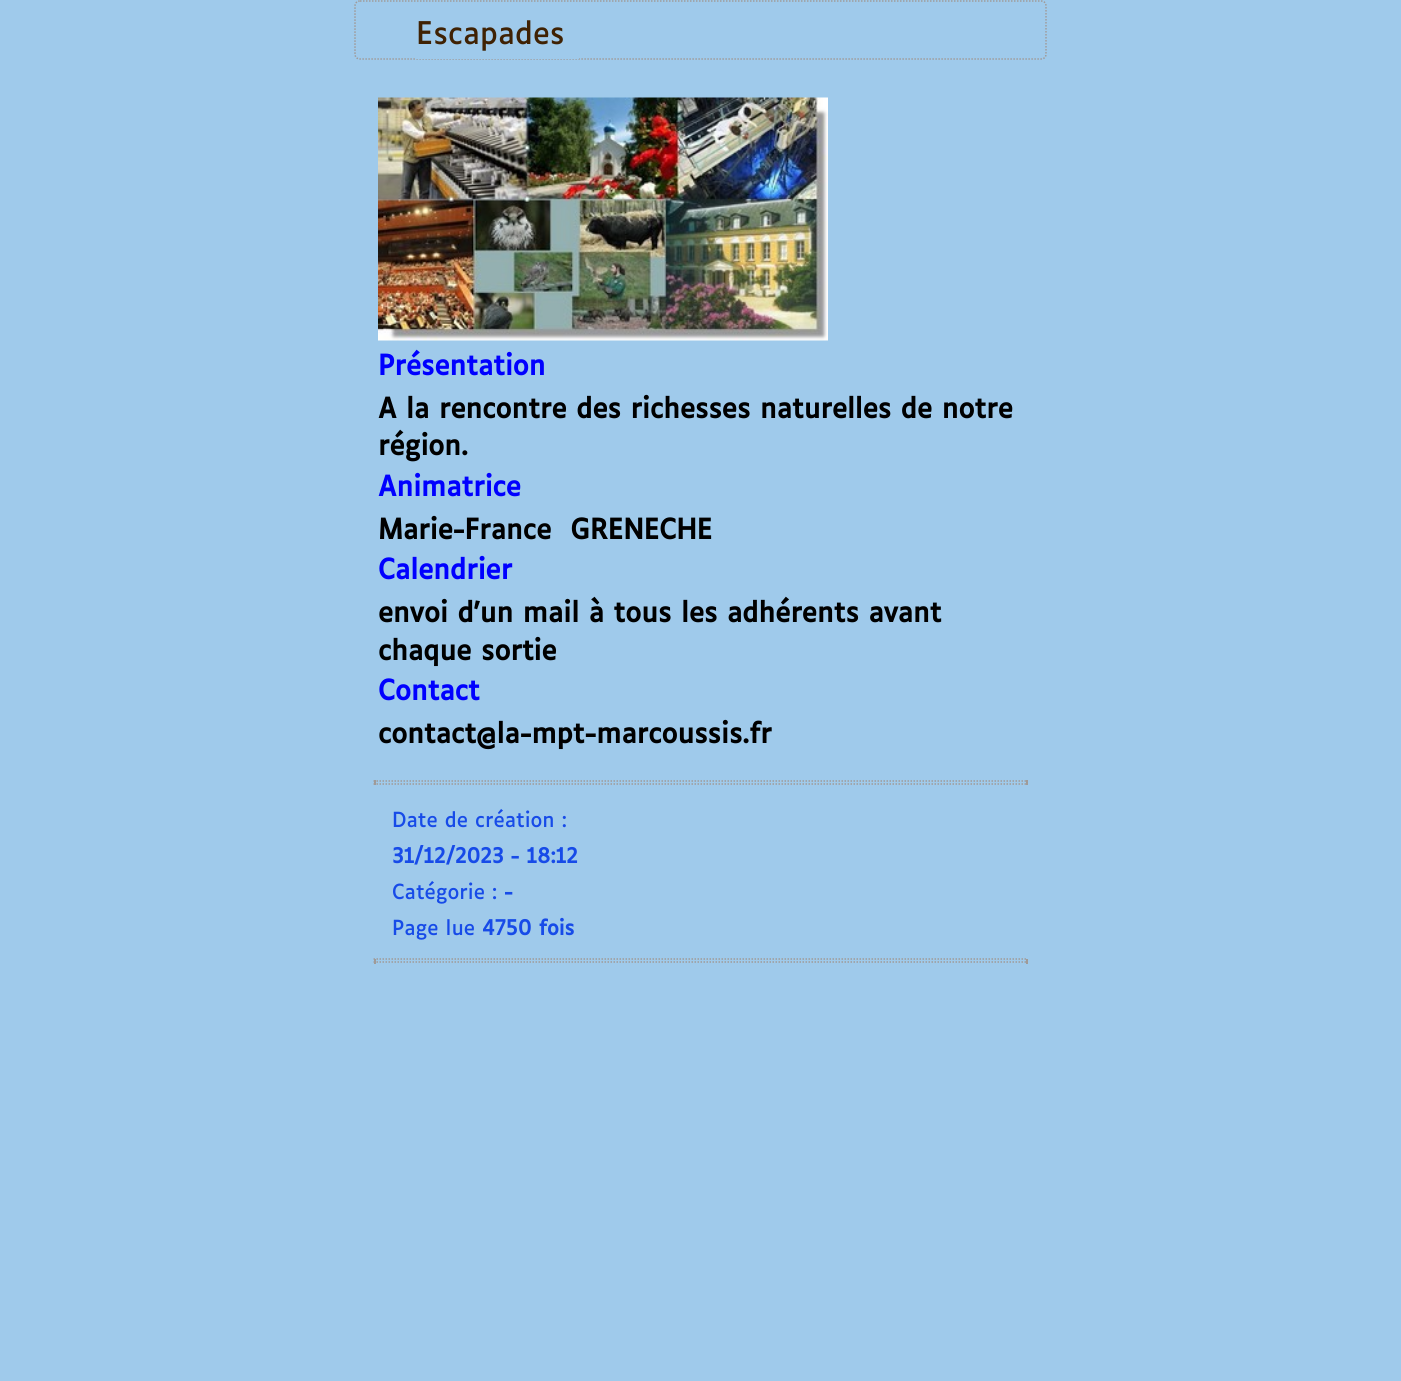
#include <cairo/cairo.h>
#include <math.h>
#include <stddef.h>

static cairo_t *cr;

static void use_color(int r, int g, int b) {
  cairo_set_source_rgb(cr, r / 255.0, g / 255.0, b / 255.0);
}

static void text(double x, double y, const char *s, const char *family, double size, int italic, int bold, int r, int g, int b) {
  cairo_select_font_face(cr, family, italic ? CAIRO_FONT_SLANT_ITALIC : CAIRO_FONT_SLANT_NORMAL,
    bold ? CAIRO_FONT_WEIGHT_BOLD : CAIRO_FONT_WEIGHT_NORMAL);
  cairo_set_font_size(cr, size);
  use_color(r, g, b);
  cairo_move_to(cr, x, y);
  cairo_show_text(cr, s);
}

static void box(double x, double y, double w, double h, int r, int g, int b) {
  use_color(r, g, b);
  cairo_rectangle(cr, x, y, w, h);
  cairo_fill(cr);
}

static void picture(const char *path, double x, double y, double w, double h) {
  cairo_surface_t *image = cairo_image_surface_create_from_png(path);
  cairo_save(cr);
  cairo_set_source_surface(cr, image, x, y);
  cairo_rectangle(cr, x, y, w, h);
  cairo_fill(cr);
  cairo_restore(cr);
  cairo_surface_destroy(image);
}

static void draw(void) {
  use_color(159, 202, 235);
  cairo_paint(cr);
  cairo_new_path(cr);
  cairo_move_to(cr, 360, 1);
  cairo_line_to(cr, 1041, 1);
  cairo_curve_to(cr, 1044, 1, 1046, 3, 1046, 6);
  cairo_line_to(cr, 1046, 54);
  cairo_curve_to(cr, 1046, 57, 1044, 59, 1041, 59);
  cairo_line_to(cr, 360, 59);
  cairo_curve_to(cr, 357, 59, 355, 57, 355, 54);
  cairo_line_to(cr, 355, 6);
  cairo_curve_to(cr, 355, 3, 357, 1, 360, 1);
  cairo_close_path(cr);
  use_color(159, 154, 152);
  cairo_set_line_width(cr, 1.5);
  cairo_set_dash(cr, (double[]){1.5, 1.5}, 2, 0);
  cairo_stroke(cr);
  box(416, 58, 163, 1, 159, 202, 235);
  picture("img_01.png", 378, 97, 450, 244);
  cairo_new_path(cr);
  cairo_move_to(cr, 373.5, 781);
  cairo_line_to(cr, 1027.5, 781);
  use_color(159, 154, 152);
  cairo_stroke(cr);
  box(1026, 780, 2, 5, 159, 154, 152);
  cairo_new_path(cr);
  cairo_move_to(cr, 373.5, 784);
  cairo_line_to(cr, 1027.5, 784);
  cairo_stroke(cr);
  box(374, 780, 2, 5, 159, 154, 152);
  cairo_new_path(cr);
  cairo_move_to(cr, 373.5, 959);
  cairo_line_to(cr, 1027.5, 959);
  cairo_stroke(cr);
  box(1026, 959, 2, 5, 159, 154, 152);
  cairo_new_path(cr);
  cairo_move_to(cr, 373.5, 962);
  cairo_line_to(cr, 1027.5, 962);
  cairo_stroke(cr);
  box(374, 959, 2, 5, 159, 154, 152);
  text(416, 44, "Escapades", "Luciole", 30, 0, 0, 63, 34, 4);
  text(378, 375, "Présentation", "Luciole", 27, 0, 1, 0, 0, 255);
  text(378, 418, "A la rencontre des richesses naturelles de notre", "Luciole", 27, 0, 1, 0, 0, 0);
  text(378, 455, "région.", "Luciole", 27, 0, 1, 0, 0, 0);
  text(378, 496, "Animatrice", "Luciole", 27, 0, 1, 0, 0, 255);
  text(378, 539, "Marie-France  GRENECHE", "Luciole", 27, 0, 1, 0, 0, 0);
  text(378, 579, "Calendrier", "Luciole", 27, 0, 1, 0, 0, 255);
  text(378, 622, "envoi d'un mail à tous les adhérents avant", "Luciole", 27, 0, 1, 0, 0, 0);
  text(378, 660, "chaque sortie", "Luciole", 27, 0, 1, 0, 0, 0);
  text(378, 700, "Contact", "Luciole", 27, 0, 1, 0, 0, 255);
  text(378, 743, "contact@la-mpt-marcoussis.fr", "Luciole", 27, 0, 1, 0, 0, 0);
  text(392, 827, "Date de création :", "Luciole", 20, 0, 0, 23, 75, 232);
  text(392, 863, "31/12/2023 - 18:12", "Luciole", 20, 0, 1, 23, 75, 232);
  text(392, 899, "Catégorie :", "Luciole", 20, 0, 0, 23, 75, 232);
  text(504, 899, "-", "Luciole", 20, 0, 1, 23, 75, 232);
  text(392, 935, "Page lue", "Luciole", 20, 0, 0, 23, 75, 232);
  text(482, 935, "4750 fois", "Luciole", 20, 0, 1, 23, 75, 232);
}

int main(void) {
  cairo_surface_t *surface = cairo_image_surface_create(CAIRO_FORMAT_RGB24, 1401, 1381);
  cr = cairo_create(surface);
  cairo_font_options_t *options = cairo_font_options_create();
  cairo_font_options_set_hint_metrics(options, CAIRO_HINT_METRICS_OFF);
  cairo_font_options_set_hint_style(options, CAIRO_HINT_STYLE_NONE);
  cairo_set_font_options(cr, options);
  cairo_set_miter_limit(cr, 4);
  draw();
  cairo_surface_write_to_png(surface, "out.png");
  cairo_font_options_destroy(options);
  cairo_destroy(cr);
  cairo_surface_destroy(surface);
  return 0;
}
